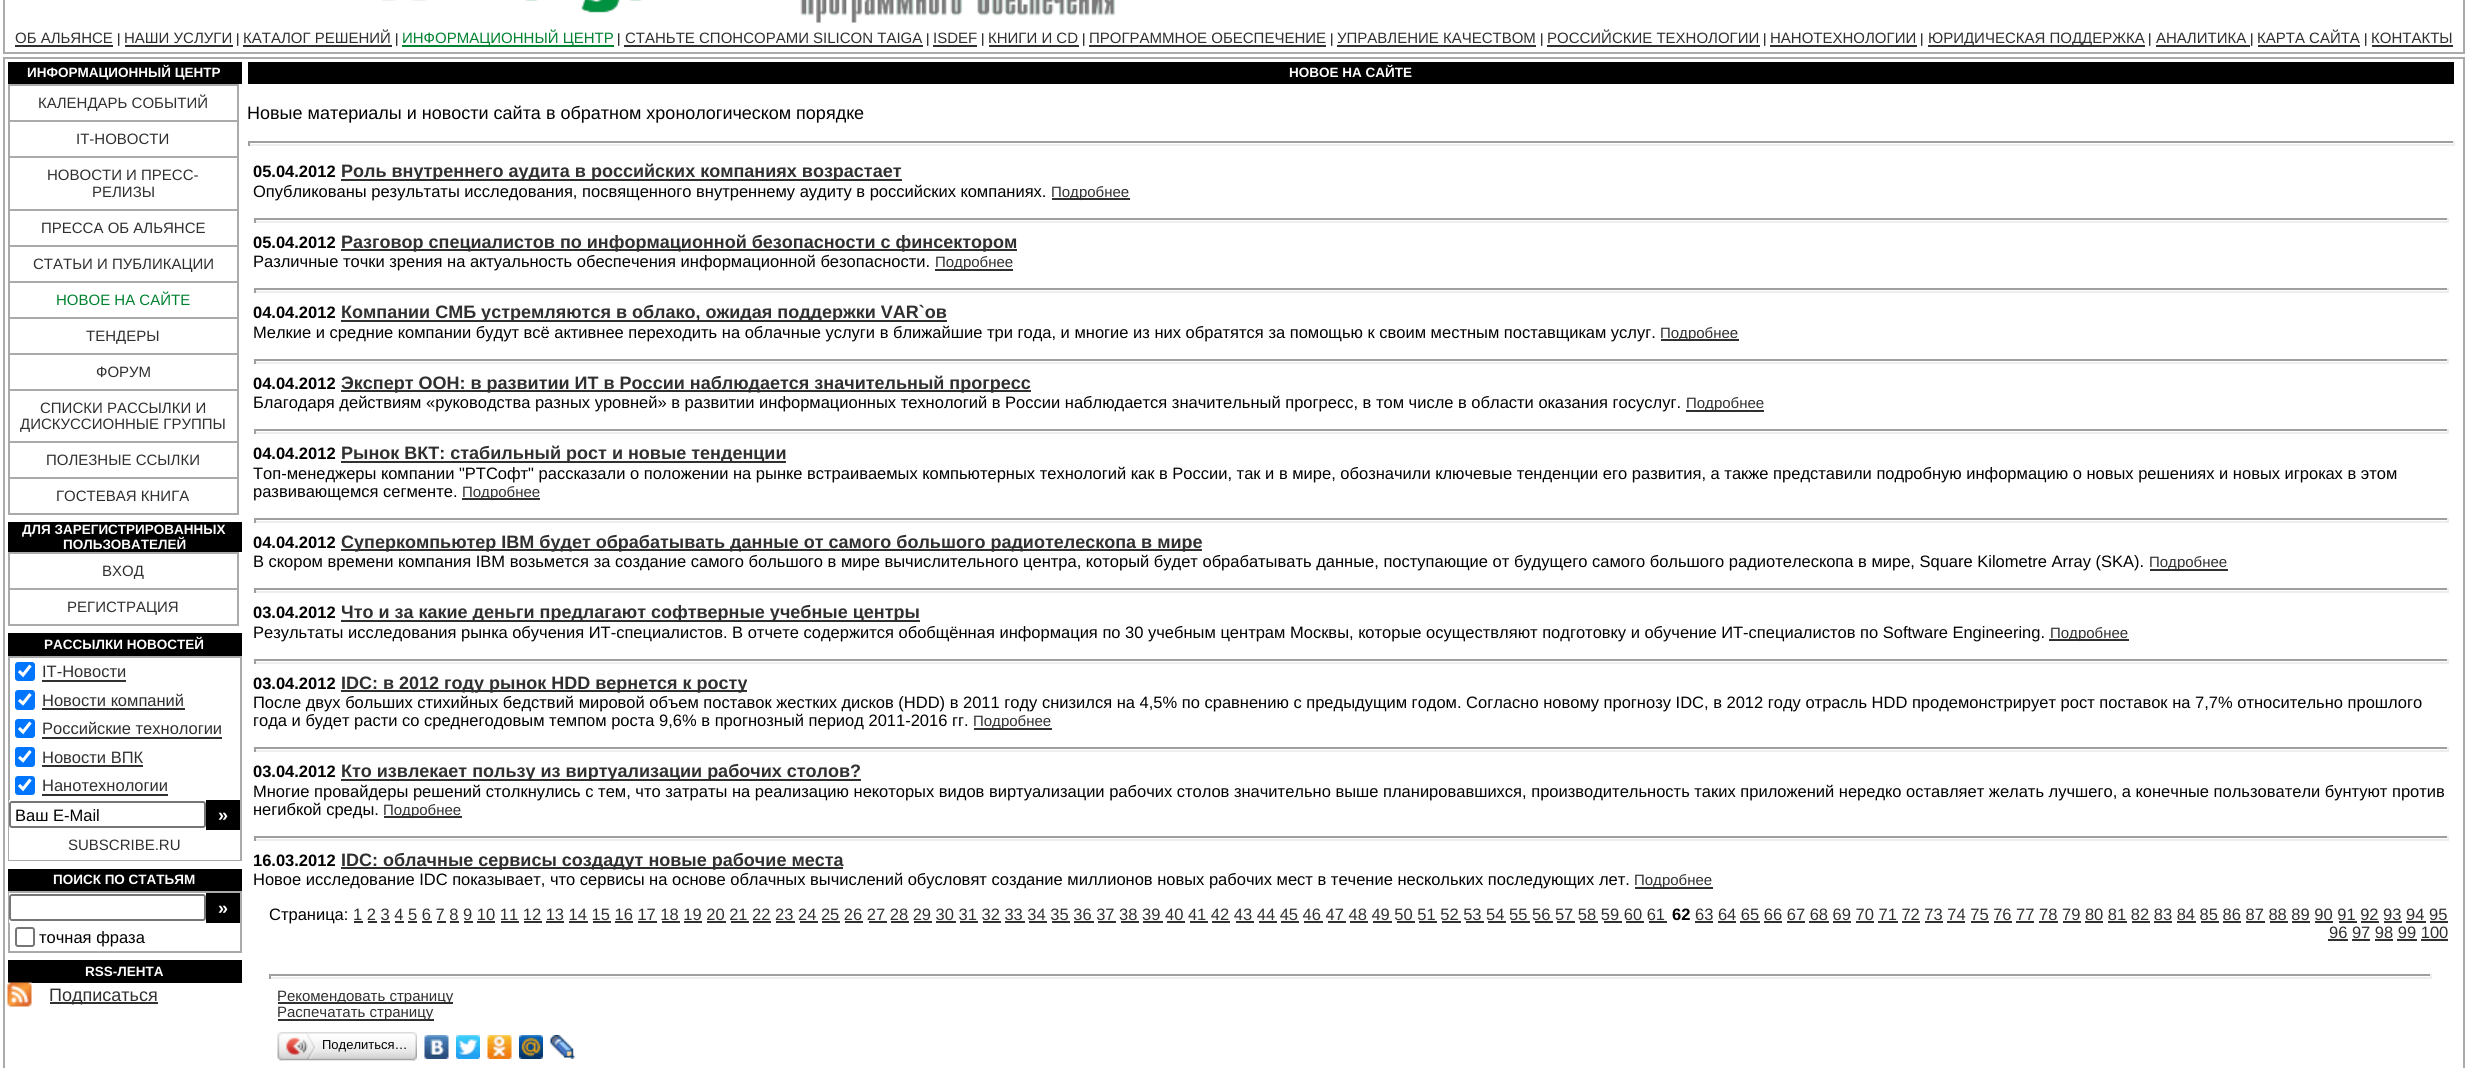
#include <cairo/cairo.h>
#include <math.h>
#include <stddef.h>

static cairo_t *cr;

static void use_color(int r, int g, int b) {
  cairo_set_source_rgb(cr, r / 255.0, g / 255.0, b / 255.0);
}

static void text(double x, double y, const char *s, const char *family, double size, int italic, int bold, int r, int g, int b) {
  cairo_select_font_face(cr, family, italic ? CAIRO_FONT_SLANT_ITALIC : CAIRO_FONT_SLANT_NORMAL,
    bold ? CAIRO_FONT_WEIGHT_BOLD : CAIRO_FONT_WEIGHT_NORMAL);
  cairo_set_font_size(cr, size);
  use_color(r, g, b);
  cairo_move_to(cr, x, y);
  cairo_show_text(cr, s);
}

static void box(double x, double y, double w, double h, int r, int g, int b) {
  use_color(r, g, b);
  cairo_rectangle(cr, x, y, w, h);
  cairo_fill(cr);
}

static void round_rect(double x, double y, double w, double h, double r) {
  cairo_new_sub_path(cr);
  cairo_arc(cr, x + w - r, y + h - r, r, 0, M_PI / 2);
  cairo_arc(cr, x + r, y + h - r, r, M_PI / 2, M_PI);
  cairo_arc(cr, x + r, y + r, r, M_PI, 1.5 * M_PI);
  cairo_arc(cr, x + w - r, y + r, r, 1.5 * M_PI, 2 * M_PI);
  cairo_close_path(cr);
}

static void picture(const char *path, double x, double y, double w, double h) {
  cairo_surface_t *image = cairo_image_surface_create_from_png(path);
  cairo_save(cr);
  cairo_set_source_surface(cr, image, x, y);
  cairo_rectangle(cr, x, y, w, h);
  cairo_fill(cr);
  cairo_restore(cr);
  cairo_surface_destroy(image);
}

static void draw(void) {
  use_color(255, 255, 255);
  cairo_paint(cr);
  cairo_rectangle(cr, 4, -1, 2460, 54);
  use_color(170, 170, 170);
  cairo_stroke(cr);
  picture("img_01.png", 382, 0, 733, 23);
  box(15, 45, 98, 2, 48, 48, 48);
  box(125, 45, 108, 2, 48, 48, 48);
  box(243, 45, 149, 2, 48, 48, 48);
  box(402, 45, 212, 2, 0, 130, 48);
  box(624, 45, 299, 2, 48, 48, 48);
  box(933, 45, 44, 2, 48, 48, 48);
  box(989, 45, 90, 2, 48, 48, 48);
  box(1089, 45, 237, 2, 48, 48, 48);
  box(1337, 45, 199, 2, 48, 48, 48);
  box(1547, 45, 213, 2, 48, 48, 48);
  box(1770, 45, 147, 2, 48, 48, 48);
  box(1928, 45, 217, 2, 48, 48, 48);
  box(2156, 45, 94, 2, 48, 48, 48);
  box(2258, 45, 102, 2, 48, 48, 48);
  box(2372, 45, 81, 2, 48, 48, 48);
  cairo_rectangle(cr, 4, 58, 2460, 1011);
  use_color(170, 170, 170);
  cairo_stroke(cr);
  box(8, 62, 234, 22, 0, 0, 0);
  box(8, 84, 231, 2, 170, 170, 170);
  box(237, 84, 2, 431, 170, 170, 170);
  box(8, 513, 231, 2, 170, 170, 170);
  box(8, 84, 2, 431, 170, 170, 170);
  box(8, 120, 231, 2, 170, 170, 170);
  box(8, 156, 231, 2, 170, 170, 170);
  box(8, 209, 231, 2, 170, 170, 170);
  box(8, 245, 231, 2, 170, 170, 170);
  box(8, 281, 231, 2, 170, 170, 170);
  box(8, 317, 231, 2, 170, 170, 170);
  box(8, 353, 231, 2, 170, 170, 170);
  box(8, 389, 231, 2, 170, 170, 170);
  box(8, 441, 231, 2, 170, 170, 170);
  box(8, 477, 231, 2, 170, 170, 170);
  box(8, 522, 234, 30, 0, 0, 0);
  box(8, 552, 231, 2, 170, 170, 170);
  box(237, 552, 2, 74, 170, 170, 170);
  box(8, 624, 231, 2, 170, 170, 170);
  box(8, 552, 2, 74, 170, 170, 170);
  box(8, 588, 231, 2, 170, 170, 170);
  box(8, 633, 234, 23, 0, 0, 0);
  cairo_rectangle(cr, 9, 657, 232, 203);
  use_color(170, 170, 170);
  cairo_stroke(cr);
  use_color(0, 117, 255);
  round_rect(15, 662, 20, 19, 3);
  cairo_fill(cr);
  cairo_new_path(cr);
  cairo_move_to(cr, 19, 671);
  cairo_line_to(cr, 23, 675);
  cairo_line_to(cr, 30.5, 665.5);
  use_color(255, 255, 255);
  cairo_set_line_width(cr, 3.1);
  cairo_stroke(cr);
  box(42, 680, 84, 2, 48, 48, 48);
  use_color(0, 117, 255);
  round_rect(15, 690, 20, 20, 3);
  cairo_fill(cr);
  cairo_new_path(cr);
  cairo_move_to(cr, 19, 700);
  cairo_line_to(cr, 23, 703.5);
  cairo_line_to(cr, 30.5, 694);
  use_color(255, 255, 255);
  cairo_stroke(cr);
  box(42, 708, 143, 2, 48, 48, 48);
  use_color(0, 117, 255);
  round_rect(15, 719, 20, 19, 3);
  cairo_fill(cr);
  cairo_new_path(cr);
  cairo_move_to(cr, 19, 728);
  cairo_line_to(cr, 23, 732);
  cairo_line_to(cr, 30.5, 722.5);
  use_color(255, 255, 255);
  cairo_stroke(cr);
  box(42, 737, 180, 2, 48, 48, 48);
  use_color(0, 117, 255);
  round_rect(15, 747, 20, 20, 3);
  cairo_fill(cr);
  cairo_new_path(cr);
  cairo_move_to(cr, 19, 757);
  cairo_line_to(cr, 23, 760.5);
  cairo_line_to(cr, 30.5, 751);
  use_color(255, 255, 255);
  cairo_stroke(cr);
  box(42, 765, 101, 2, 48, 48, 48);
  use_color(0, 117, 255);
  round_rect(15, 776, 20, 19, 3);
  cairo_fill(cr);
  cairo_new_path(cr);
  cairo_move_to(cr, 19, 785);
  cairo_line_to(cr, 23, 789);
  cairo_line_to(cr, 30.5, 779.5);
  use_color(255, 255, 255);
  cairo_stroke(cr);
  box(42, 794, 126, 2, 48, 48, 48);
  box(9, 800, 1, 30, 255, 255, 255);
  round_rect(10, 802, 195, 25, 2);
  use_color(118, 118, 118);
  cairo_set_line_width(cr, 2);
  cairo_stroke(cr);
  box(206, 800, 34, 30, 0, 0, 0);
  box(9, 830, 231, 30, 255, 255, 255);
  box(8, 869, 234, 22, 0, 0, 0);
  cairo_rectangle(cr, 9, 892, 232, 60);
  use_color(170, 170, 170);
  cairo_stroke(cr);
  box(9, 893, 1, 30, 255, 255, 255);
  round_rect(10, 895, 195, 25, 2);
  use_color(118, 118, 118);
  cairo_stroke(cr);
  box(206, 893, 34, 30, 0, 0, 0);
  round_rect(16, 928, 18, 18, 2);
  use_color(118, 118, 118);
  cairo_stroke(cr);
  box(8, 960, 234, 23, 0, 0, 0);
  picture("img_02.png", 7, 982, 25, 25);
  box(50, 1002, 108, 2, 48, 48, 48);
  box(248, 62, 2206, 22, 0, 0, 0);
  box(248, 141, 2206, 2, 159, 159, 159);
  box(2453, 141, 2, 5, 238, 238, 238);
  box(248, 144, 2206, 2, 238, 238, 238);
  box(248, 141, 2, 5, 159, 159, 159);
  box(341, 179, 561, 2, 48, 48, 48);
  box(1052, 198, 78, 2, 48, 48, 48);
  box(254, 218, 2194, 2, 159, 159, 159);
  box(2447, 218, 2, 5, 238, 238, 238);
  box(254, 221, 2194, 2, 238, 238, 238);
  box(254, 218, 2, 5, 159, 159, 159);
  box(341, 249, 676, 2, 48, 48, 48);
  box(935, 269, 78, 2, 48, 48, 48);
  box(254, 288, 2194, 2, 159, 159, 159);
  box(2447, 288, 2, 5, 238, 238, 238);
  box(254, 291, 2194, 2, 238, 238, 238);
  box(254, 288, 2, 5, 159, 159, 159);
  box(341, 320, 606, 2, 48, 48, 48);
  box(1661, 339, 78, 2, 48, 48, 48);
  box(254, 359, 2194, 2, 159, 159, 159);
  box(2447, 359, 2, 5, 238, 238, 238);
  box(254, 362, 2194, 2, 238, 238, 238);
  box(254, 359, 2, 5, 159, 159, 159);
  box(341, 390, 690, 2, 48, 48, 48);
  box(1686, 410, 78, 2, 48, 48, 48);
  box(254, 429, 2194, 2, 159, 159, 159);
  box(2447, 429, 2, 5, 238, 238, 238);
  box(254, 432, 2194, 2, 238, 238, 238);
  box(254, 429, 2, 5, 159, 159, 159);
  box(341, 461, 445, 2, 48, 48, 48);
  box(462, 498, 78, 2, 48, 48, 48);
  box(254, 518, 2194, 2, 159, 159, 159);
  box(2447, 518, 2, 5, 238, 238, 238);
  box(254, 521, 2194, 2, 238, 238, 238);
  box(254, 518, 2, 5, 159, 159, 159);
  box(341, 549, 861, 2, 48, 48, 48);
  box(2150, 569, 78, 2, 48, 48, 48);
  box(254, 588, 2194, 2, 159, 159, 159);
  box(2447, 588, 2, 5, 238, 238, 238);
  box(254, 591, 2194, 2, 238, 238, 238);
  box(254, 588, 2, 5, 159, 159, 159);
  box(341, 620, 579, 2, 48, 48, 48);
  box(2049, 639, 80, 2, 48, 48, 48);
  box(254, 659, 2194, 2, 159, 159, 159);
  box(2447, 659, 2, 5, 238, 238, 238);
  box(254, 662, 2194, 2, 238, 238, 238);
  box(254, 659, 2, 5, 159, 159, 159);
  box(341, 690, 406, 2, 48, 48, 48);
  box(974, 728, 78, 2, 48, 48, 48);
  box(254, 747, 2194, 2, 159, 159, 159);
  box(2447, 747, 2, 5, 238, 238, 238);
  box(254, 750, 2194, 2, 238, 238, 238);
  box(254, 747, 2, 5, 159, 159, 159);
  box(341, 779, 520, 2, 48, 48, 48);
  box(384, 816, 78, 2, 48, 48, 48);
  box(254, 836, 2194, 2, 159, 159, 159);
  box(2447, 836, 2, 5, 238, 238, 238);
  box(254, 839, 2194, 2, 238, 238, 238);
  box(254, 836, 2, 5, 159, 159, 159);
  box(341, 867, 502, 2, 48, 48, 48);
  box(1635, 887, 78, 2, 48, 48, 48);
  box(354, 921, 9, 2, 48, 48, 48);
  box(1695, 921, 18, 2, 48, 48, 48);
  box(368, 921, 9, 2, 48, 48, 48);
  box(381, 921, 9, 2, 48, 48, 48);
  box(395, 921, 9, 2, 48, 48, 48);
  box(408, 921, 9, 2, 48, 48, 48);
  box(422, 921, 10, 2, 48, 48, 48);
  box(437, 921, 9, 2, 48, 48, 48);
  box(450, 921, 9, 2, 48, 48, 48);
  box(464, 921, 9, 2, 48, 48, 48);
  box(477, 921, 18, 2, 48, 48, 48);
  box(501, 921, 18, 2, 48, 48, 48);
  box(524, 921, 18, 2, 48, 48, 48);
  box(546, 921, 18, 2, 48, 48, 48);
  box(569, 921, 19, 2, 48, 48, 48);
  box(593, 921, 18, 2, 48, 48, 48);
  box(615, 921, 18, 2, 48, 48, 48);
  box(638, 921, 19, 2, 48, 48, 48);
  box(662, 921, 18, 2, 48, 48, 48);
  box(684, 921, 18, 2, 48, 48, 48);
  box(707, 921, 19, 2, 48, 48, 48);
  box(731, 921, 18, 2, 48, 48, 48);
  box(753, 921, 18, 2, 48, 48, 48);
  box(776, 921, 19, 2, 48, 48, 48);
  box(800, 921, 18, 2, 48, 48, 48);
  box(822, 921, 18, 2, 48, 48, 48);
  box(845, 921, 18, 2, 48, 48, 48);
  box(869, 921, 18, 2, 48, 48, 48);
  box(891, 921, 18, 2, 48, 48, 48);
  box(914, 921, 18, 2, 48, 48, 48);
  box(936, 921, 20, 2, 48, 48, 48);
  box(960, 921, 18, 2, 48, 48, 48);
  box(983, 921, 18, 2, 48, 48, 48);
  box(1005, 921, 20, 2, 48, 48, 48);
  box(1029, 921, 18, 2, 48, 48, 48);
  box(1052, 921, 18, 2, 48, 48, 48);
  box(1074, 921, 20, 2, 48, 48, 48);
  box(1098, 921, 18, 2, 48, 48, 48);
  box(1121, 921, 18, 2, 48, 48, 48);
  box(1143, 921, 20, 2, 48, 48, 48);
  box(1167, 921, 18, 2, 48, 48, 48);
  box(1190, 921, 18, 2, 48, 48, 48);
  box(1212, 921, 18, 2, 48, 48, 48);
  box(1236, 921, 18, 2, 48, 48, 48);
  box(1259, 921, 18, 2, 48, 48, 48);
  box(1281, 921, 18, 2, 48, 48, 48);
  box(1304, 921, 19, 2, 48, 48, 48);
  box(1328, 921, 18, 2, 48, 48, 48);
  box(1350, 921, 18, 2, 48, 48, 48);
  box(1373, 921, 19, 2, 48, 48, 48);
  box(1397, 921, 18, 2, 48, 48, 48);
  box(1419, 921, 18, 2, 48, 48, 48);
  box(1442, 921, 19, 2, 48, 48, 48);
  box(1466, 921, 18, 2, 48, 48, 48);
  box(1488, 921, 18, 2, 48, 48, 48);
  box(1511, 921, 19, 2, 48, 48, 48);
  box(1535, 921, 18, 2, 48, 48, 48);
  box(1557, 921, 18, 2, 48, 48, 48);
  box(1580, 921, 18, 2, 48, 48, 48);
  box(1604, 921, 18, 2, 48, 48, 48);
  box(1626, 921, 18, 2, 48, 48, 48);
  box(1649, 921, 18, 2, 48, 48, 48);
  box(1718, 921, 18, 2, 48, 48, 48);
  box(1740, 921, 20, 2, 48, 48, 48);
  box(1764, 921, 18, 2, 48, 48, 48);
  box(1787, 921, 18, 2, 48, 48, 48);
  box(1809, 921, 20, 2, 48, 48, 48);
  box(1833, 921, 18, 2, 48, 48, 48);
  box(1856, 921, 18, 2, 48, 48, 48);
  box(1878, 921, 20, 2, 48, 48, 48);
  box(1902, 921, 18, 2, 48, 48, 48);
  box(1925, 921, 18, 2, 48, 48, 48);
  box(1947, 921, 18, 2, 48, 48, 48);
  box(1971, 921, 18, 2, 48, 48, 48);
  box(1994, 921, 18, 2, 48, 48, 48);
  box(2016, 921, 18, 2, 48, 48, 48);
  box(2039, 921, 19, 2, 48, 48, 48);
  box(2063, 921, 18, 2, 48, 48, 48);
  box(2085, 921, 18, 2, 48, 48, 48);
  box(2108, 921, 19, 2, 48, 48, 48);
  box(2132, 921, 18, 2, 48, 48, 48);
  box(2154, 921, 18, 2, 48, 48, 48);
  box(2177, 921, 19, 2, 48, 48, 48);
  box(2201, 921, 18, 2, 48, 48, 48);
  box(2223, 921, 18, 2, 48, 48, 48);
  box(2246, 921, 19, 2, 48, 48, 48);
  box(2270, 921, 18, 2, 48, 48, 48);
  box(2292, 921, 18, 2, 48, 48, 48);
  box(2315, 921, 18, 2, 48, 48, 48);
  box(2339, 921, 18, 2, 48, 48, 48);
  box(2361, 921, 18, 2, 48, 48, 48);
  box(2384, 921, 18, 2, 48, 48, 48);
  box(2406, 921, 20, 2, 48, 48, 48);
  box(2430, 921, 18, 2, 48, 48, 48);
  box(2328, 939, 20, 2, 48, 48, 48);
  box(2352, 939, 18, 2, 48, 48, 48);
  box(2375, 939, 18, 2, 48, 48, 48);
  box(2397, 939, 20, 2, 48, 48, 48);
  box(2421, 939, 27, 2, 48, 48, 48);
  box(269, 974, 2163, 2, 159, 159, 159);
  box(2430, 974, 2, 5, 238, 238, 238);
  box(269, 977, 2163, 2, 238, 238, 238);
  box(269, 974, 2, 5, 159, 159, 159);
  box(278, 1002, 175, 2, 48, 48, 48);
  box(278, 1019, 156, 2, 48, 48, 48);
  picture("img_03.png", 282, 1032, 131, 29);
  picture("img_04.png", 277, 1032, 5, 29);
  picture("img_05.png", 286, 1033, 31, 26);
  picture("img_06.png", 412, 1032, 5, 29);
  picture("img_07.png", 424, 1035, 25, 24);
  picture("img_08.png", 456, 1035, 24, 24);
  picture("img_09.png", 487, 1035, 25, 24);
  picture("img_10.png", 519, 1035, 24, 24);
  picture("img_11.png", 550, 1035, 25, 24);
  text(15, 43, "ОБ АЛЬЯНСЕ", "Liberation Sans", 15, 0, 0, 48, 48, 48);
  text(117, 43, "|", "Liberation Sans", 13.5, 0, 0, 0, 0, 0);
  text(124, 43, "НАШИ УСЛУГИ", "Liberation Sans", 15, 0, 0, 48, 48, 48);
  text(236, 43, "|", "Liberation Sans", 13.5, 0, 0, 0, 0, 0);
  text(243, 43, "КАТАЛОГ РЕШЕНИЙ", "Liberation Sans", 15, 0, 0, 48, 48, 48);
  text(395, 43, "|", "Liberation Sans", 13.5, 0, 0, 0, 0, 0);
  text(402, 43, "ИНФОРМАЦИОННЫЙ ЦЕНТР", "Liberation Sans", 15, 0, 0, 0, 130, 48);
  text(617, 43, "|", "Liberation Sans", 13.5, 0, 0, 0, 0, 0);
  text(625, 43, "СТАНЬТЕ СПОНСОРАМИ SILICON TAIGA", "Liberation Sans", 15, 0, 0, 48, 48, 48);
  text(926, 43, "|", "Liberation Sans", 13.5, 0, 0, 0, 0, 0);
  text(933, 43, "ISDEF", "Liberation Sans", 15, 0, 0, 48, 48, 48);
  text(981, 43, "|", "Liberation Sans", 13.5, 0, 0, 0, 0, 0);
  text(988, 43, "КНИГИ И CD", "Liberation Sans", 15, 0, 0, 48, 48, 48);
  text(1082, 43, "|", "Liberation Sans", 13.5, 0, 0, 0, 0, 0);
  text(1089, 43, "ПРОГРАММНОЕ ОБЕСПЕЧЕНИЕ", "Liberation Sans", 15, 0, 0, 48, 48, 48);
  text(1330, 43, "|", "Liberation Sans", 13.5, 0, 0, 0, 0, 0);
  text(1337, 43, "УПРАВЛЕНИЕ КАЧЕСТВОМ", "Liberation Sans", 15, 0, 0, 48, 48, 48);
  text(1540, 43, "|", "Liberation Sans", 13.5, 0, 0, 0, 0, 0);
  text(1547, 43, "РОССИЙСКИЕ ТЕХНОЛОГИИ", "Liberation Sans", 15, 0, 0, 48, 48, 48);
  text(1763, 43, "|", "Liberation Sans", 13.5, 0, 0, 0, 0, 0);
  text(1770, 43, "НАНОТЕХНОЛОГИИ", "Liberation Sans", 15, 0, 0, 48, 48, 48);
  text(1920, 43, "|", "Liberation Sans", 13.5, 0, 0, 0, 0, 0);
  text(1928, 43, "ЮРИДИЧЕСКАЯ ПОДДЕРЖКА", "Liberation Sans", 15, 0, 0, 48, 48, 48);
  text(2148, 43, "|", "Liberation Sans", 13.5, 0, 0, 0, 0, 0);
  text(2156, 43, "АНАЛИТИКА", "Liberation Sans", 15, 0, 0, 48, 48, 48);
  text(2250, 43, "|", "Liberation Sans", 13.5, 0, 0, 0, 0, 0);
  text(2257, 43, "КАРТА САЙТА", "Liberation Sans", 15, 0, 0, 48, 48, 48);
  text(2364, 43, "|", "Liberation Sans", 13.5, 0, 0, 0, 0, 0);
  text(2371, 43, "КОНТАКТЫ", "Liberation Sans", 15, 0, 0, 48, 48, 48);
  text(27, 77, "ИНФОРМАЦИОННЫЙ ЦЕНТР", "Liberation Sans", 13.5, 0, 1, 255, 255, 255);
  text(38, 108, "КАЛЕНДАРЬ СОБЫТИЙ", "Liberation Sans", 15, 0, 0, 48, 48, 48);
  text(76, 144, "IT-НОВОСТИ", "Liberation Sans", 15, 0, 0, 48, 48, 48);
  text(47, 180, "НОВОСТИ И ПРЕСС-", "Liberation Sans", 15, 0, 0, 48, 48, 48);
  text(92, 197, "РЕЛИЗЫ", "Liberation Sans", 15, 0, 0, 48, 48, 48);
  text(41, 233, "ПРЕССА ОБ АЛЬЯНСЕ", "Liberation Sans", 15, 0, 0, 48, 48, 48);
  text(33, 269, "СТАТЬИ И ПУБЛИКАЦИИ", "Liberation Sans", 15, 0, 0, 48, 48, 48);
  text(56, 305, "НОВОЕ НА САЙТЕ", "Liberation Sans", 15, 0, 0, 0, 130, 48);
  text(86, 341, "ТЕНДЕРЫ", "Liberation Sans", 15, 0, 0, 48, 48, 48);
  text(96, 377, "ФОРУМ", "Liberation Sans", 15, 0, 0, 48, 48, 48);
  text(40, 413, "СПИСКИ РАССЫЛКИ И", "Liberation Sans", 15, 0, 0, 48, 48, 48);
  text(20, 429, "ДИСКУССИОННЫЕ ГРУППЫ", "Liberation Sans", 15, 0, 0, 48, 48, 48);
  text(46, 465, "ПОЛЕЗНЫЕ ССЫЛКИ", "Liberation Sans", 15, 0, 0, 48, 48, 48);
  text(56, 501, "ГОСТЕВАЯ КНИГА", "Liberation Sans", 15, 0, 0, 48, 48, 48);
  text(22, 534, "ДЛЯ ЗАРЕГИСТРИРОВАННЫХ", "Liberation Sans", 13.5, 0, 1, 255, 255, 255);
  text(63, 549, "ПОЛЬЗОВАТЕЛЕЙ", "Liberation Sans", 13.5, 0, 1, 255, 255, 255);
  text(102, 576, "ВХОД", "Liberation Sans", 15, 0, 0, 48, 48, 48);
  text(67, 612, "РЕГИСТРАЦИЯ", "Liberation Sans", 15, 0, 0, 48, 48, 48);
  text(44, 649, "РАССЫЛКИ НОВОСТЕЙ", "Liberation Sans", 13.5, 0, 1, 255, 255, 255);
  text(42, 677, "IT-Новости", "Liberation Sans", 16.5, 0, 0, 48, 48, 48);
  text(42, 706, "Новости компаний", "Liberation Sans", 16.5, 0, 0, 48, 48, 48);
  text(42, 734, "Российские технологии", "Liberation Sans", 16.5, 0, 0, 48, 48, 48);
  text(42, 763, "Новости ВПК", "Liberation Sans", 16.5, 0, 0, 48, 48, 48);
  text(42, 791, "Нанотехнологии", "Liberation Sans", 16.5, 0, 0, 48, 48, 48);
  text(15, 821, "Ваш E-Mail", "Liberation Sans", 16.5, 0, 0, 0, 0, 0);
  text(218, 821, "»", "Liberation Sans", 18, 0, 1, 255, 255, 255);
  text(68, 850, "SUBSCRIBE.RU", "Liberation Sans", 15, 0, 0, 48, 48, 48);
  text(53, 884, "ПОИСК ПО СТАТЬЯМ", "Liberation Sans", 13.5, 0, 1, 255, 255, 255);
  text(218, 914, "»", "Liberation Sans", 18, 0, 1, 255, 255, 255);
  text(39, 943, "точная фраза", "Liberation Sans", 16.5, 0, 0, 0, 0, 0);
  text(85, 976, "RSS-ЛЕНТА", "Liberation Sans", 13.5, 0, 1, 255, 255, 255);
  text(49, 1001, "Подписаться", "Liberation Sans", 18, 0, 0, 48, 48, 48);
  text(1289, 77, "НОВОЕ НА САЙТЕ", "Liberation Sans", 13.5, 0, 1, 255, 255, 255);
  text(247, 119, "Новые материалы и новости сайта в обратном хронологическом порядке", "Liberation Sans", 18, 0, 0, 0, 0, 0);
  text(253, 177, "05.04.2012", "Liberation Sans", 16.5, 0, 1, 0, 0, 0);
  text(341, 177, "Роль внутреннего аудита в российских компаниях возрастает", "Liberation Sans", 18, 0, 1, 48, 48, 48);
  text(253, 197, "Опубликованы результаты исследования, посвященного внутреннему аудиту в российских компаниях.", "Liberation Sans", 16.5, 0, 0, 0, 0, 0);
  text(1051, 197, "Подробнее", "Liberation Sans", 15, 0, 0, 48, 48, 48);
  text(253, 248, "05.04.2012", "Liberation Sans", 16.5, 0, 1, 0, 0, 0);
  text(341, 248, "Разговор специалистов по информационной безопасности с финсектором", "Liberation Sans", 18, 0, 1, 48, 48, 48);
  text(253, 267, "Различные точки зрения на актуальность обеспечения информационной безопасности.", "Liberation Sans", 16.5, 0, 0, 0, 0, 0);
  text(935, 267, "Подробнее", "Liberation Sans", 15, 0, 0, 48, 48, 48);
  text(253, 318, "04.04.2012", "Liberation Sans", 16.5, 0, 1, 0, 0, 0);
  text(341, 318, "Компании СМБ устремляются в облако, ожидая поддержки VAR`ов", "Liberation Sans", 18, 0, 1, 48, 48, 48);
  text(253, 338, "Мелкие и средние компании будут всё активнее переходить на облачные услуги в ближайшие три года, и многие из них обратятся за помощью к своим местным поставщикам услуг.", "Liberation Sans", 16.5, 0, 0, 0, 0, 0);
  text(1660, 338, "Подробнее", "Liberation Sans", 15, 0, 0, 48, 48, 48);
  text(253, 389, "04.04.2012", "Liberation Sans", 16.5, 0, 1, 0, 0, 0);
  text(341, 389, "Эксперт ООН: в развитии ИТ в России наблюдается значительный прогресс", "Liberation Sans", 18, 0, 1, 48, 48, 48);
  text(253, 408, "Благодаря действиям «руководства разных уровней» в развитии информационных технологий в России наблюдается значительный прогресс, в том числе в области оказания госуслуг.", "Liberation Sans", 16.5, 0, 0, 0, 0, 0);
  text(1686, 408, "Подробнее", "Liberation Sans", 15, 0, 0, 48, 48, 48);
  text(253, 459, "04.04.2012", "Liberation Sans", 16.5, 0, 1, 0, 0, 0);
  text(341, 459, "Рынок ВКТ: стабильный рост и новые тенденции", "Liberation Sans", 18, 0, 1, 48, 48, 48);
  text(253, 479, "Топ-менеджеры компании \"РТСофт\" рассказали о положении на рынке встраиваемых компьютерных технологий как в России, так и в мире, обозначили ключевые тенденции его развития, а также представили подробную информацию о новых решениях и новых игроках в этом", "Liberation Sans", 16.5, 0, 0, 0, 0, 0);
  text(253, 497, "развивающемся сегменте.", "Liberation Sans", 16.5, 0, 0, 0, 0, 0);
  text(462, 497, "Подробнее", "Liberation Sans", 15, 0, 0, 48, 48, 48);
  text(253, 548, "04.04.2012", "Liberation Sans", 16.5, 0, 1, 0, 0, 0);
  text(341, 548, "Суперкомпьютер IBM будет обрабатывать данные от самого большого радиотелескопа в мире", "Liberation Sans", 18, 0, 1, 48, 48, 48);
  text(253, 567, "В скором времени компания IBM возьмется за создание самого большого в мире вычислительного центра, который будет обрабатывать данные, поступающие от будущего самого большого радиотелескопа в мире, Square Kilometre Array (SKA).", "Liberation Sans", 16.5, 0, 0, 0, 0, 0);
  text(2149, 567, "Подробнее", "Liberation Sans", 15, 0, 0, 48, 48, 48);
  text(253, 618, "03.04.2012", "Liberation Sans", 16.5, 0, 1, 0, 0, 0);
  text(341, 618, "Что и за какие деньги предлагают софтверные учебные центры", "Liberation Sans", 18, 0, 1, 48, 48, 48);
  text(253, 638, "Результаты исследования рынка обучения ИТ-специалистов. В отчете содержится обобщённая информация по 30 учебным центрам Москвы, которые осуществляют подготовку и обучение ИТ-специалистов по Software Engineering.", "Liberation Sans", 16.5, 0, 0, 0, 0, 0);
  text(2050, 638, "Подробнее", "Liberation Sans", 15, 0, 0, 48, 48, 48);
  text(253, 689, "03.04.2012", "Liberation Sans", 16.5, 0, 1, 0, 0, 0);
  text(341, 689, "IDC: в 2012 году рынок HDD вернется к росту", "Liberation Sans", 18, 0, 1, 48, 48, 48);
  text(253, 708, "После двух больших стихийных бедствий мировой объем поставок жестких дисков (HDD) в 2011 году снизился на 4,5% по сравнению с предыдущим годом. Согласно новому прогнозу IDC, в 2012 году отрасль HDD продемонстрирует рост поставок на 7,7% относительно прошлого", "Liberation Sans", 16.5, 0, 0, 0, 0, 0);
  text(253, 726, "года и будет расти со среднегодовым темпом роста 9,6% в прогнозный период 2011-2016 гг.", "Liberation Sans", 16.5, 0, 0, 0, 0, 0);
  text(973, 726, "Подробнее", "Liberation Sans", 15, 0, 0, 48, 48, 48);
  text(253, 777, "03.04.2012", "Liberation Sans", 16.5, 0, 1, 0, 0, 0);
  text(341, 777, "Кто извлекает пользу из виртуализации рабочих столов?", "Liberation Sans", 18, 0, 1, 48, 48, 48);
  text(253, 797, "Многие провайдеры решений столкнулись с тем, что затраты на реализацию некоторых видов виртуализации рабочих столов значительно выше планировавшихся, производительность таких приложений нередко оставляет желать лучшего, а конечные пользователи бунтуют против", "Liberation Sans", 16.5, 0, 0, 0, 0, 0);
  text(253, 815, "негибкой среды.", "Liberation Sans", 16.5, 0, 0, 0, 0, 0);
  text(383, 815, "Подробнее", "Liberation Sans", 15, 0, 0, 48, 48, 48);
  text(253, 866, "16.03.2012", "Liberation Sans", 16.5, 0, 1, 0, 0, 0);
  text(341, 866, "IDC: облачные сервисы создадут новые рабочие места", "Liberation Sans", 18, 0, 1, 48, 48, 48);
  text(253, 885, "Новое исследование IDC показывает, что сервисы на основе облачных вычислений обусловят создание миллионов новых рабочих мест в течение нескольких последующих лет.", "Liberation Sans", 16.5, 0, 0, 0, 0, 0);
  text(1634, 885, "Подробнее", "Liberation Sans", 15, 0, 0, 48, 48, 48);
  text(269, 920, "Страница:", "Liberation Sans", 16.5, 0, 0, 0, 0, 0);
  text(353, 920, "1 2 3 4 5 6 7 8 9 10 11 12 13 14 15 16 17 18 19 20 21 22 23 24 25 26 27 28 29 30 31 32 33 34 35 36 37 38 39 40 41 42 43 44 45 46 47 48 49 50 51 52 53 54 55 56 57 58 59 60 61", "Liberation Sans", 16.5, 0, 0, 48, 48, 48);
  text(1672, 920, "62", "Liberation Sans", 16.5, 0, 1, 0, 0, 0);
  text(1695, 920, "63 64 65 66 67 68 69 70 71 72 73 74 75 76 77 78 79 80 81 82 83 84 85 86 87 88 89 90 91 92 93 94 95", "Liberation Sans", 16.5, 0, 0, 48, 48, 48);
  text(2329, 938, "96 97 98 99 100", "Liberation Sans", 16.5, 0, 0, 48, 48, 48);
  text(277, 1001, "Рекомендовать страницу", "Liberation Sans", 15, 0, 0, 48, 48, 48);
  text(277, 1017, "Распечатать страницу", "Liberation Sans", 15, 0, 0, 48, 48, 48);
  text(322, 1049, "Поделиться…", "Liberation Sans", 13, 0, 0, 0, 0, 0);
}

int main(void) {
  cairo_surface_t *surface = cairo_image_surface_create(CAIRO_FORMAT_RGB24, 2467, 1068);
  cr = cairo_create(surface);
  cairo_font_options_t *options = cairo_font_options_create();
  cairo_font_options_set_hint_metrics(options, CAIRO_HINT_METRICS_OFF);
  cairo_font_options_set_hint_style(options, CAIRO_HINT_STYLE_NONE);
  cairo_set_font_options(cr, options);
  cairo_set_miter_limit(cr, 4);
  draw();
  cairo_surface_write_to_png(surface, "out.png");
  cairo_font_options_destroy(options);
  cairo_destroy(cr);
  cairo_surface_destroy(surface);
  return 0;
}
